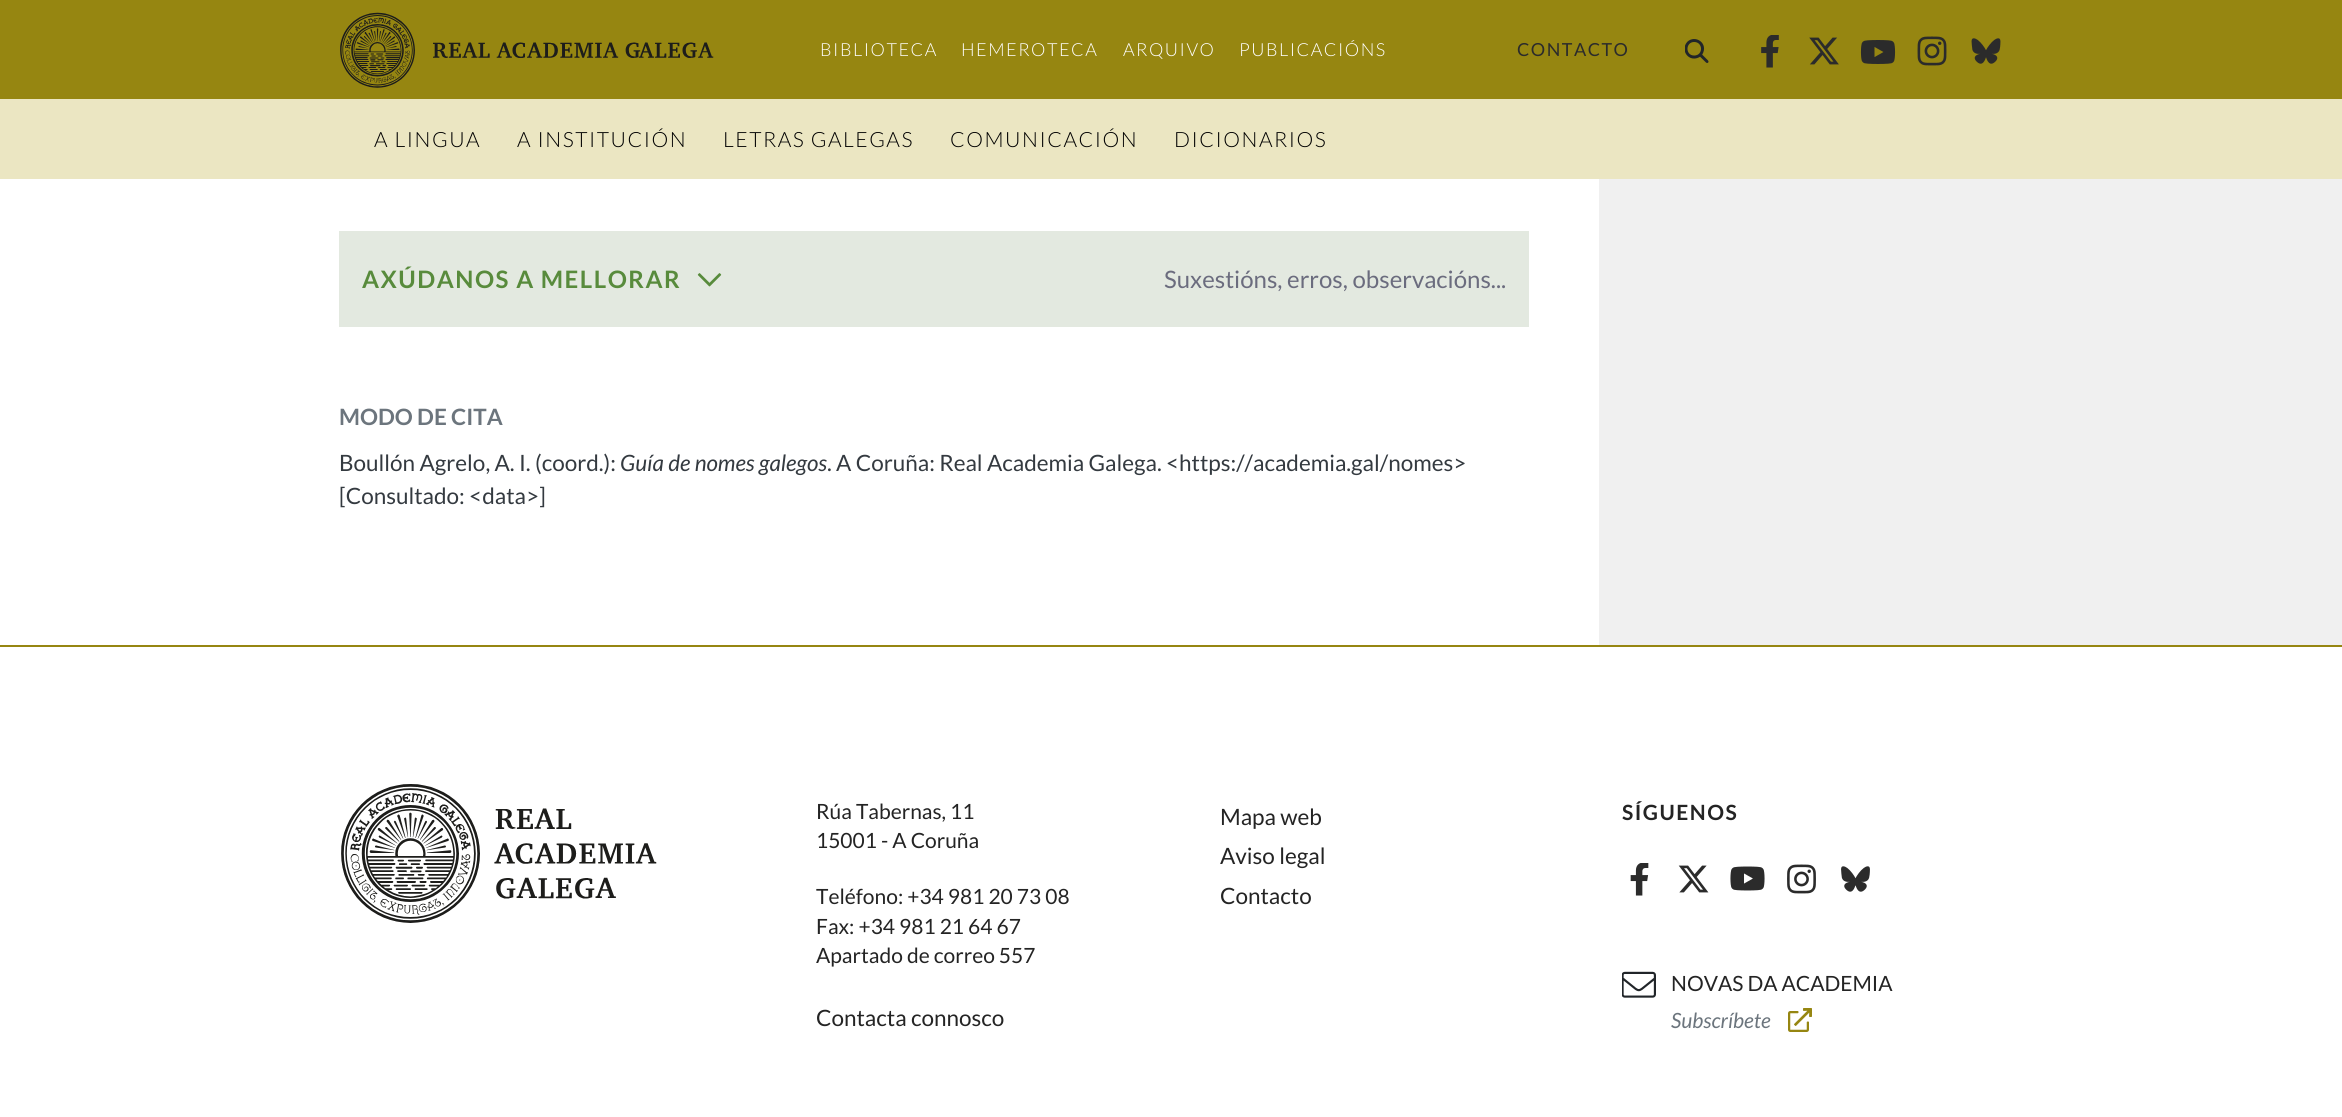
#include <cairo/cairo.h>
#include <math.h>
#include <stddef.h>

static cairo_t *cr;

static void use_color(int r, int g, int b) {
  cairo_set_source_rgb(cr, r / 255.0, g / 255.0, b / 255.0);
}

static void text(double x, double y, const char *s, const char *family, double size, int italic, int bold, int r, int g, int b) {
  cairo_select_font_face(cr, family, italic ? CAIRO_FONT_SLANT_ITALIC : CAIRO_FONT_SLANT_NORMAL,
    bold ? CAIRO_FONT_WEIGHT_BOLD : CAIRO_FONT_WEIGHT_NORMAL);
  cairo_set_font_size(cr, size);
  use_color(r, g, b);
  cairo_move_to(cr, x, y);
  cairo_show_text(cr, s);
}

static void spaced_text(double x, double y, const char *s, double letter, double word) {
  cairo_move_to(cr, x, y);
  while (*s) {
    char ch[5] = {0};
    int n = 0;
    do ch[n++] = *s++; while ((*s & 0xC0) == 0x80);
    cairo_show_text(cr, ch);
    cairo_rel_move_to(cr, letter + word * (*ch == ' '), 0);
  }
}

static void box(double x, double y, double w, double h, int r, int g, int b) {
  use_color(r, g, b);
  cairo_rectangle(cr, x, y, w, h);
  cairo_fill(cr);
}

static void picture(const char *path, double x, double y, double w, double h) {
  cairo_surface_t *image = cairo_image_surface_create_from_png(path);
  cairo_save(cr);
  cairo_set_source_surface(cr, image, x, y);
  cairo_rectangle(cr, x, y, w, h);
  cairo_fill(cr);
  cairo_restore(cr);
  cairo_surface_destroy(image);
}

static void draw(void) {
  use_color(255, 255, 255);
  cairo_paint(cr);
  box(0, 0, 2342, 99, 150, 134, 17);
  picture("img_01.png", 340, 12, 374, 76);
  picture("img_02.png", 1685, 39, 24, 24);
  picture("img_03.png", 1761, 35, 18, 33);
  picture("img_04.png", 1809, 37, 30, 28);
  picture("img_05.png", 1860, 40, 36, 24);
  picture("img_06.png", 1917, 36, 30, 30);
  picture("img_07.png", 1971, 38, 30, 26);
  box(0, 99, 2342, 80, 235, 230, 194);
  box(339, 231, 1190, 96, 227, 233, 224);
  picture("img_08.png", 697, 273, 25, 14);
  box(1599, 179, 743, 466, 240, 240, 240);
  box(0, 645, 2342, 2, 150, 134, 17);
  picture("img_09.png", 341, 784, 316, 139);
  picture("img_10.png", 1630, 863, 19, 33);
  picture("img_11.png", 1678, 865, 31, 28);
  picture("img_12.png", 1730, 866, 35, 25);
  picture("img_13.png", 1787, 864, 29, 30);
  picture("img_14.png", 1841, 866, 29, 26);
  picture("img_15.png", 1622, 971, 34, 27);
  picture("img_16.png", 1788, 1008, 24, 24);
  cairo_select_font_face(cr, "Lato Light", CAIRO_FONT_SLANT_NORMAL, CAIRO_FONT_WEIGHT_NORMAL);
  cairo_set_font_size(cr, 18);
  use_color(255, 255, 255);
  spaced_text(820, 56, "BIBLIOTECA", 1.5, 0);
  spaced_text(961, 56, "HEMEROTECA", 1.5, 0);
  spaced_text(1123, 56, "ARQUIVO", 1.5, 0);
  spaced_text(1239, 56, "PUBLICACIÓNS", 1.5, 0);
  cairo_select_font_face(cr, "Lato", CAIRO_FONT_SLANT_NORMAL, CAIRO_FONT_WEIGHT_NORMAL);
  use_color(43, 43, 43);
  spaced_text(1517, 56, "CONTACTO", 1.5, 0);
  cairo_select_font_face(cr, "Lato Light", CAIRO_FONT_SLANT_NORMAL, CAIRO_FONT_WEIGHT_NORMAL);
  cairo_set_font_size(cr, 21);
  use_color(0, 0, 0);
  spaced_text(374, 147, "A LINGUA", 1.5, 0);
  spaced_text(517, 147, "A INSTITUCIÓN", 1.5, 0);
  spaced_text(723, 147, "LETRAS GALEGAS", 1.5, 0);
  spaced_text(950, 147, "COMUNICACIÓN", 1.5, 0);
  spaced_text(1174, 147, "DICIONARIOS", 1.5, 0);
  cairo_select_font_face(cr, "Lato", CAIRO_FONT_SLANT_NORMAL, CAIRO_FONT_WEIGHT_BOLD);
  cairo_set_font_size(cr, 24);
  use_color(88, 139, 60);
  spaced_text(362, 288, "AXÚDANOS A MELLORAR", 1.5, 0);
  text(1164, 288, "Suxestións, erros, observacións...", "Lato", 24, 0, 0, 107, 108, 126);
  text(339, 425, "MODO DE CITA", "Lato", 22.5, 0, 1, 108, 117, 125);
  text(339, 471, "Boullón Agrelo, A. I. (coord.):", "Lato", 22.5, 0, 0, 52, 58, 64);
  text(620, 471, "Guía de nomes galegos", "Lato", 22.5, 1, 0, 52, 58, 64);
  text(827, 471, ". A Coruña: Real Academia Galega. <https://academia.gal/nomes>", "Lato", 22.5, 0, 0, 52, 58, 64);
  text(339, 504, "[Consultado: <data>]", "Lato", 22.5, 0, 0, 52, 58, 64);
  text(816, 819, "Rúa Tabernas, 11", "Lato", 21, 0, 0, 36, 36, 36);
  text(816, 848, "15001 - A Coruña", "Lato", 21, 0, 0, 36, 36, 36);
  text(816, 904, "Teléfono: +34 981 20 73 08", "Lato", 21, 0, 0, 36, 36, 36);
  text(816, 934, "Fax: +34 981 21 64 67", "Lato", 21, 0, 0, 36, 36, 36);
  text(816, 963, "Apartado de correo 557", "Lato", 21, 0, 0, 36, 36, 36);
  text(816, 1026, "Contacta connosco", "Lato", 22.5, 0, 0, 36, 36, 36);
  text(1220, 825, "Mapa web", "Lato", 22.5, 0, 0, 36, 36, 36);
  text(1220, 864, "Aviso legal", "Lato", 22.5, 0, 0, 36, 36, 36);
  text(1220, 904, "Contacto", "Lato", 22.5, 0, 0, 36, 36, 36);
  cairo_select_font_face(cr, "Lato", CAIRO_FONT_SLANT_NORMAL, CAIRO_FONT_WEIGHT_BOLD);
  cairo_set_font_size(cr, 21);
  spaced_text(1622, 820, "SÍGUENOS", 1.5, 0);
  text(1671, 991, "NOVAS DA ACADEMIA", "Lato", 21, 0, 0, 36, 36, 36);
  text(1671, 1028, "Subscríbete", "Lato", 21, 1, 0, 108, 117, 125);
}

int main(void) {
  cairo_surface_t *surface = cairo_image_surface_create(CAIRO_FORMAT_RGB24, 2342, 1117);
  cr = cairo_create(surface);
  cairo_font_options_t *options = cairo_font_options_create();
  cairo_font_options_set_hint_metrics(options, CAIRO_HINT_METRICS_OFF);
  cairo_font_options_set_hint_style(options, CAIRO_HINT_STYLE_NONE);
  cairo_set_font_options(cr, options);
  cairo_set_miter_limit(cr, 4);
  draw();
  cairo_surface_write_to_png(surface, "out.png");
  cairo_font_options_destroy(options);
  cairo_destroy(cr);
  cairo_surface_destroy(surface);
  return 0;
}
